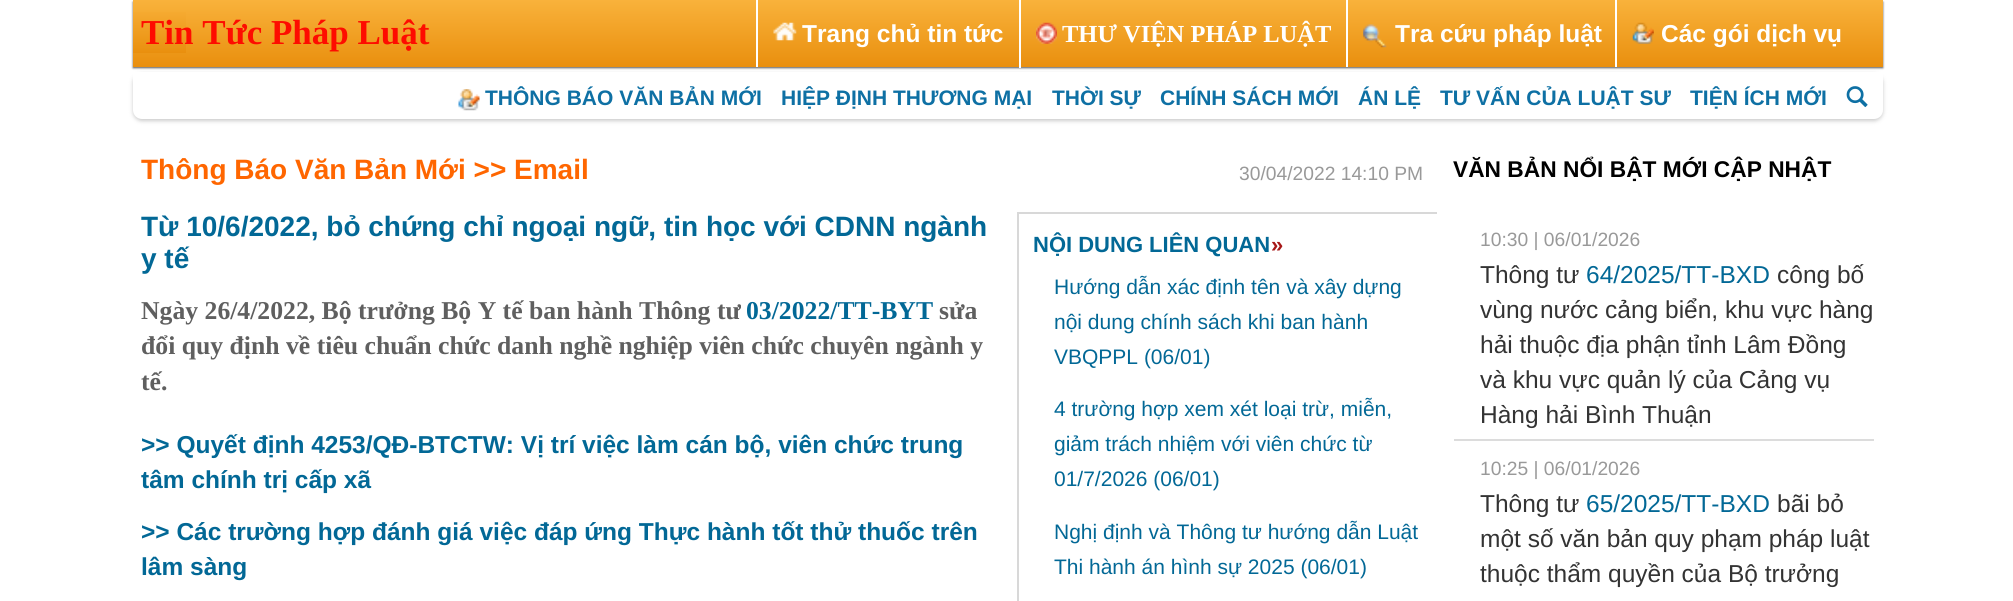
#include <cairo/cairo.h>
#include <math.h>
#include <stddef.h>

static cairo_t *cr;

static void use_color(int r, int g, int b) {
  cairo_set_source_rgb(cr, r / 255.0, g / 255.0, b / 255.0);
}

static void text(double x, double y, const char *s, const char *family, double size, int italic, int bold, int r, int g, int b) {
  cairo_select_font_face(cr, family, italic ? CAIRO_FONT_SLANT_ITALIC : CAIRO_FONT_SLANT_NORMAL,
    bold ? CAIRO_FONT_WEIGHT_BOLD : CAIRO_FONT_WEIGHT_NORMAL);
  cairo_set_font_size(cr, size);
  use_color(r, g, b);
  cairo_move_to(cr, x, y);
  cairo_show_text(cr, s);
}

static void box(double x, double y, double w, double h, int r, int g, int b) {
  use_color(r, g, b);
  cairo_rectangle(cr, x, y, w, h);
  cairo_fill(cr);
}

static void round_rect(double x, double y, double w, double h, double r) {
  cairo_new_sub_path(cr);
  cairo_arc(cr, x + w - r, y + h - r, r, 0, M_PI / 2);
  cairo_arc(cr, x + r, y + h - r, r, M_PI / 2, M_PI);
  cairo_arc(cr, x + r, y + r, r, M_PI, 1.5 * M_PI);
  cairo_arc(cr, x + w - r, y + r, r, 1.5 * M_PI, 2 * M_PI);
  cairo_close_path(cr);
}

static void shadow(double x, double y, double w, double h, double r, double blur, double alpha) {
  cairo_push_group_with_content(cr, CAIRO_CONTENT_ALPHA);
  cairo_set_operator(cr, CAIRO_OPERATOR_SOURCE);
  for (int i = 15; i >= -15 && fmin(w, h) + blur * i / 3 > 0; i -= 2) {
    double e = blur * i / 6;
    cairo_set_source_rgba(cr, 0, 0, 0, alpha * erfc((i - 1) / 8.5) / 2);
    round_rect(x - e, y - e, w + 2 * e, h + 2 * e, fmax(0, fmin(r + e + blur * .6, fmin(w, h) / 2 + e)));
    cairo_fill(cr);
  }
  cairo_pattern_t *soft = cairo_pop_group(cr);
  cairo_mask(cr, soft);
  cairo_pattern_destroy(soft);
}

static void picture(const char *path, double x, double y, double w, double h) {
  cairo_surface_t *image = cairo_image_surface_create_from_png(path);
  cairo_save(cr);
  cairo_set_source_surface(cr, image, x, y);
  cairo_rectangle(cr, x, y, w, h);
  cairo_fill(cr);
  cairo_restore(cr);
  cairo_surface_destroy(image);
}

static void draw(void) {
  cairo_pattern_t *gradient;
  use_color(255, 255, 255);
  cairo_paint(cr);
  use_color(90, 90, 90);
  shadow(133, 2, 1750, 66, 0, 1, 1);
  gradient = cairo_pattern_create_linear(1008, 0, 1008, 67);
  cairo_pattern_add_color_stop_rgba(gradient, 0, 0.976, 0.698, 0.231, 1);
  cairo_pattern_add_color_stop_rgba(gradient, 1, 0.914, 0.561, 0.055, 1);
  cairo_set_source(cr, gradient);
  cairo_pattern_destroy(gradient);
  cairo_rectangle(cr, 133, 0, 1750, 67);
  cairo_fill(cr);
  gradient = cairo_pattern_create_linear(159, 0, 159, 53);
  cairo_pattern_add_color_stop_rgba(gradient, 0, 0.976, 0.698, 0.231, 1);
  cairo_pattern_add_color_stop_rgba(gradient, 1, 0.914, 0.561, 0.055, 1);
  cairo_set_source(cr, gradient);
  cairo_pattern_destroy(gradient);
  cairo_rectangle(cr, 133, 12, 53, 41);
  cairo_fill(cr);
  box(756, 0, 2, 67, 255, 255, 255);
  picture("img_01.png", 773, 22, 24, 19);
  use_color(204, 204, 204);
  shadow(133, 74, 1750, 47, 9, 2, 1);
  box(1019, 0, 2, 68, 255, 255, 255);
  picture("img_02.png", 1036, 22, 21, 22);
  box(1346, 0, 2, 67, 255, 255, 255);
  picture("img_03.png", 1363, 24, 24, 24);
  box(1615, 0, 2, 67, 255, 255, 255);
  picture("img_04.png", 1632, 22, 22, 22);
  cairo_new_path(cr);
  cairo_move_to(cr, 133, 72);
  cairo_line_to(cr, 1883, 72);
  cairo_line_to(cr, 1883, 110);
  cairo_curve_to(cr, 1883, 115, 1879, 119, 1874, 119);
  cairo_line_to(cr, 142, 119);
  cairo_curve_to(cr, 137, 119, 133, 115, 133, 110);
  cairo_close_path(cr);
  cairo_fill(cr);
  picture("img_05.png", 458, 89, 22, 22);
  picture("img_06.png", 1846, 86, 22, 22);
  box(1017, 212, 420, 2, 216, 216, 216);
  box(1017, 212, 2, 389, 216, 216, 216);
  box(1454, 439, 420, 2, 220, 220, 220);
  text(141, 44, "Tin Tức Pháp Luật", "Liberation Serif", 35, 0, 1, 254, 12, 0);
  text(802, 42, "Trang chủ tin tức", "Liberation Sans", 24.5, 0, 1, 255, 255, 255);
  text(1062, 42, "THƯ VIỆN PHÁP LUẬT", "Liberation Serif", 24.5, 0, 1, 255, 255, 255);
  text(1395, 42, "Tra cứu pháp luật", "Liberation Sans", 24.5, 0, 1, 255, 255, 255);
  text(1661, 42, "Các gói dịch vụ", "Liberation Sans", 24.5, 0, 1, 255, 255, 255);
  text(485, 105, "THÔNG BÁO VĂN BẢN MỚI", "Liberation Sans", 21, 0, 1, 14, 112, 164);
  text(781, 105, "HIỆP ĐỊNH THƯƠNG MẠI", "Liberation Sans", 21, 0, 1, 14, 112, 164);
  text(1052, 105, "THỜI SỰ", "Liberation Sans", 21, 0, 1, 14, 112, 164);
  text(1160, 105, "CHÍNH SÁCH MỚI", "Liberation Sans", 21, 0, 1, 14, 112, 164);
  text(1358, 105, "ÁN LỆ", "Liberation Sans", 21, 0, 1, 14, 112, 164);
  text(1440, 105, "TƯ VẤN CỦA LUẬT SƯ", "Liberation Sans", 21, 0, 1, 14, 112, 164);
  text(1690, 105, "TIỆN ÍCH MỚI", "Liberation Sans", 21, 0, 1, 14, 112, 164);
  text(141, 179, "Thông Báo Văn Bản Mới >> Email", "Liberation Sans", 28, 0, 1, 255, 102, 0);
  text(1239, 180, "30/04/2022 14:10 PM", "Liberation Sans", 19.25, 0, 0, 153, 153, 153);
  text(141, 236, "Từ 10/6/2022, bỏ chứng chỉ ngoại ngữ, tin học với CDNN ngành", "Liberation Sans", 28, 0, 1, 2, 104, 150);
  text(141, 268, "y tế", "Liberation Sans", 28, 0, 1, 2, 104, 150);
  text(141, 319, "Ngày 26/4/2022, Bộ trưởng Bộ Y tế ban hành Thông tư", "Liberation Serif", 25.7, 0, 1, 95, 95, 95);
  text(746, 319, "03/2022/TT-BYT", "Liberation Serif", 25.7, 0, 1, 2, 104, 150);
  text(939, 319, "sửa", "Liberation Serif", 25.7, 0, 1, 95, 95, 95);
  text(141, 354, "đổi quy định về tiêu chuẩn chức danh nghề nghiệp viên chức chuyên ngành y", "Liberation Serif", 25.7, 0, 1, 95, 95, 95);
  text(141, 390, "tế.", "Liberation Serif", 25.7, 0, 1, 95, 95, 95);
  text(141, 453, ">> Quyết định 4253/QĐ-BTCTW: Vị trí việc làm cán bộ, viên chức trung", "Liberation Sans", 24.5, 0, 1, 2, 104, 150);
  text(141, 488, "tâm chính trị cấp xã", "Liberation Sans", 24.5, 0, 1, 2, 104, 150);
  text(141, 540, ">> Các trường hợp đánh giá việc đáp ứng Thực hành tốt thử thuốc trên", "Liberation Sans", 24.5, 0, 1, 2, 104, 150);
  text(141, 575, "lâm sàng", "Liberation Sans", 24.5, 0, 1, 2, 104, 150);
  text(1033, 252, "NỘI DUNG LIÊN QUAN", "Liberation Sans", 22, 0, 1, 2, 104, 150);
  text(1271, 252, "»", "Liberation Sans", 22, 0, 1, 167, 23, 23);
  text(1054, 294, "Hướng dẫn xác định tên và xây dựng", "Liberation Sans", 21, 0, 0, 2, 104, 150);
  text(1054, 329, "nội dung chính sách khi ban hành", "Liberation Sans", 21, 0, 0, 2, 104, 150);
  text(1054, 364, "VBQPPL (06/01)", "Liberation Sans", 21, 0, 0, 2, 104, 150);
  text(1054, 416, "4 trường hợp xem xét loại trừ, miễn,", "Liberation Sans", 21, 0, 0, 2, 104, 150);
  text(1054, 451, "giảm trách nhiệm với viên chức từ", "Liberation Sans", 21, 0, 0, 2, 104, 150);
  text(1054, 486, "01/7/2026 (06/01)", "Liberation Sans", 21, 0, 0, 2, 104, 150);
  text(1054, 539, "Nghị định và Thông tư hướng dẫn Luật", "Liberation Sans", 21, 0, 0, 2, 104, 150);
  text(1054, 574, "Thi hành án hình sự 2025 (06/01)", "Liberation Sans", 21, 0, 0, 2, 104, 150);
  text(1453, 177, "VĂN BẢN NỔI BẬT MỚI CẬP NHẬT", "Liberation Sans", 22.75, 0, 1, 0, 0, 0);
  text(1480, 246, "10:30 | 06/01/2026", "Liberation Sans", 19.25, 0, 0, 153, 153, 153);
  text(1480, 283, "Thông tư", "Liberation Sans", 24.5, 0, 0, 51, 51, 51);
  text(1586, 283, "64/2025/TT-BXD", "Liberation Sans", 24.5, 0, 0, 2, 104, 150);
  text(1777, 283, "công bố", "Liberation Sans", 24.5, 0, 0, 51, 51, 51);
  text(1480, 318, "vùng nước cảng biển, khu vực hàng", "Liberation Sans", 24.5, 0, 0, 51, 51, 51);
  text(1480, 353, "hải thuộc địa phận tỉnh Lâm Đồng", "Liberation Sans", 24.5, 0, 0, 51, 51, 51);
  text(1480, 388, "và khu vực quản lý của Cảng vụ", "Liberation Sans", 24.5, 0, 0, 51, 51, 51);
  text(1480, 423, "Hàng hải Bình Thuận", "Liberation Sans", 24.5, 0, 0, 51, 51, 51);
  text(1480, 475, "10:25 | 06/01/2026", "Liberation Sans", 19.25, 0, 0, 153, 153, 153);
  text(1480, 512, "Thông tư", "Liberation Sans", 24.5, 0, 0, 51, 51, 51);
  text(1586, 512, "65/2025/TT-BXD", "Liberation Sans", 24.5, 0, 0, 2, 104, 150);
  text(1777, 512, "bãi bỏ", "Liberation Sans", 24.5, 0, 0, 51, 51, 51);
  text(1480, 547, "một số văn bản quy phạm pháp luật", "Liberation Sans", 24.5, 0, 0, 51, 51, 51);
  text(1480, 582, "thuộc thẩm quyền của Bộ trưởng", "Liberation Sans", 24.5, 0, 0, 51, 51, 51);
}

int main(void) {
  cairo_surface_t *surface = cairo_image_surface_create(CAIRO_FORMAT_RGB24, 2013, 601);
  cr = cairo_create(surface);
  cairo_font_options_t *options = cairo_font_options_create();
  cairo_font_options_set_hint_metrics(options, CAIRO_HINT_METRICS_OFF);
  cairo_font_options_set_hint_style(options, CAIRO_HINT_STYLE_NONE);
  cairo_set_font_options(cr, options);
  cairo_set_miter_limit(cr, 4);
  draw();
  cairo_surface_write_to_png(surface, "out.png");
  cairo_font_options_destroy(options);
  cairo_destroy(cr);
  cairo_surface_destroy(surface);
  return 0;
}
